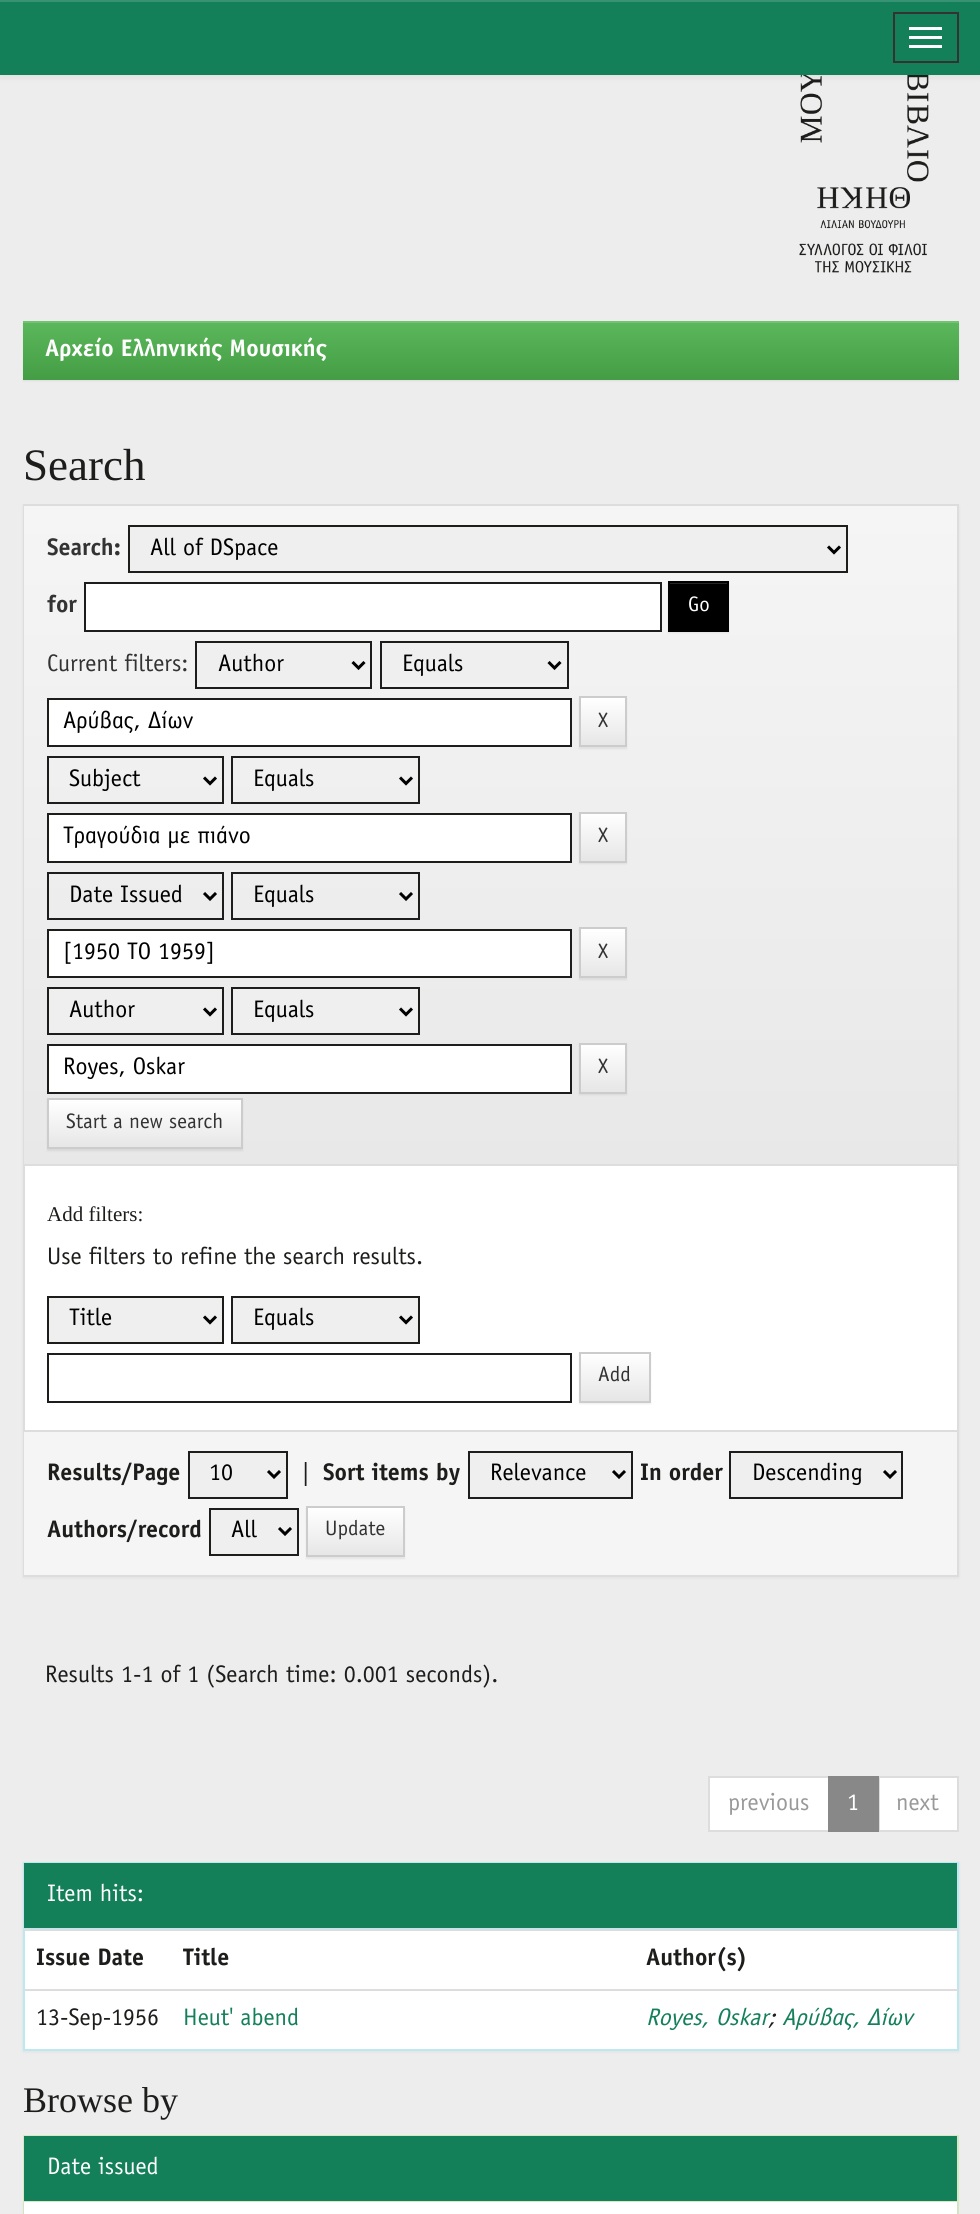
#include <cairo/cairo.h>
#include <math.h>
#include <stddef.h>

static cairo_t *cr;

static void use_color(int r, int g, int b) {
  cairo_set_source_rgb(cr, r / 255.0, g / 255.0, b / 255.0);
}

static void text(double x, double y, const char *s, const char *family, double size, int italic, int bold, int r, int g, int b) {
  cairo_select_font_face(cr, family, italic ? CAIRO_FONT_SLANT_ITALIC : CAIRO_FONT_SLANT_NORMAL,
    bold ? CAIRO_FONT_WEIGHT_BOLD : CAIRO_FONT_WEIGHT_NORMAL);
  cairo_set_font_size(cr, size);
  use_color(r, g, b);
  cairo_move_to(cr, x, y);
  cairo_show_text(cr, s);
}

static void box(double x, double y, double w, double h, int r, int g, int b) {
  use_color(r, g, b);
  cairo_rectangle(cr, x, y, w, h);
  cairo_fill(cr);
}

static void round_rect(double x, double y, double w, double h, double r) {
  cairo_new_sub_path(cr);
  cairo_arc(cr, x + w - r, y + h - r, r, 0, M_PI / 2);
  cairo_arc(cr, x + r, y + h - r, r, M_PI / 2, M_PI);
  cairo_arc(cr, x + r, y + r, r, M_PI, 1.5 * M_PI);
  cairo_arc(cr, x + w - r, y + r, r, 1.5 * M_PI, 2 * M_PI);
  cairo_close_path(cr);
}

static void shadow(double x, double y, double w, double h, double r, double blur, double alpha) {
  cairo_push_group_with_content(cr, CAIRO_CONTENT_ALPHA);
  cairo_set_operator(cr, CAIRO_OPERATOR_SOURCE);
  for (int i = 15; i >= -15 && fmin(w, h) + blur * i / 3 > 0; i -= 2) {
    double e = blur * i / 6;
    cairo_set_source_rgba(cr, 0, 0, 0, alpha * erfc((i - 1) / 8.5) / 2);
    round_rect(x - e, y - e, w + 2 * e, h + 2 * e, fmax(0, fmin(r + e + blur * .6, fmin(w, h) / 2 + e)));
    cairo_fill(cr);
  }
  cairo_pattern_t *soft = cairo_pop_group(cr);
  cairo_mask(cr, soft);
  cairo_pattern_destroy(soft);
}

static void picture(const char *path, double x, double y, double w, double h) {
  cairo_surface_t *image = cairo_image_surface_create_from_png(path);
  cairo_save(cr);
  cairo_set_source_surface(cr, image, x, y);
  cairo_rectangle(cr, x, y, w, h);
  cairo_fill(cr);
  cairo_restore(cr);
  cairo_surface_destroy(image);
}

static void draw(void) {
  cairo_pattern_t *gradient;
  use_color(237, 237, 237);
  cairo_paint(cr);
  picture("img_01.png", 799, 75, 130, 198);
  use_color(0, 0, 0);
  shadow(0, 2, 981, 75, 0, 4, 0.07);
  box(0, 2, 980, 73, 20, 128, 90);
  box(0, 0, 980, 2, 55, 147, 115);
  cairo_rectangle(cr, 894, 13, 64, 49);
  use_color(51, 51, 51);
  cairo_stroke(cr);
  box(909, 27, 33, 3, 255, 255, 255);
  box(909, 36, 33, 3, 255, 255, 255);
  box(909, 45, 33, 3, 255, 255, 255);
  use_color(0, 0, 0);
  shadow(23, 323, 936, 58, 0, 1, 0.07);
  gradient = cairo_pattern_create_linear(491, 321, 491, 380);
  cairo_pattern_add_color_stop_rgba(gradient, 0, 0.361, 0.722, 0.361, 1);
  cairo_pattern_add_color_stop_rgba(gradient, 1, 0.267, 0.616, 0.267, 1);
  cairo_set_source(cr, gradient);
  cairo_pattern_destroy(gradient);
  cairo_rectangle(cr, 23, 323, 936, 57);
  cairo_fill(cr);
  box(23, 321, 936, 2, 116, 194, 116);
  use_color(0, 0, 0);
  shadow(23, 506, 936, 1072, 0, 1.5, 0.05);
  box(25, 1166, 932, 264, 255, 255, 255);
  cairo_rectangle(cr, 24, 505, 934, 1071);
  use_color(221, 221, 221);
  cairo_stroke(cr);
  gradient = cairo_pattern_create_linear(491, 506, 491, 1164);
  cairo_pattern_add_color_stop_rgba(gradient, 0, 0.961, 0.961, 0.961, 1);
  cairo_pattern_add_color_stop_rgba(gradient, 1, 0.91, 0.91, 0.91, 1);
  cairo_set_source(cr, gradient);
  cairo_pattern_destroy(gradient);
  cairo_rectangle(cr, 24, 506, 933, 658);
  cairo_fill(cr);
  box(24, 1164, 933, 2, 221, 221, 221);
  use_color(239, 239, 239);
  cairo_rectangle(cr, 129, 526, 718, 46);
  cairo_fill_preserve(cr);
  use_color(29, 29, 27);
  cairo_stroke(cr);
  cairo_new_path(cr);
  cairo_move_to(cr, 828, 546.5);
  cairo_line_to(cr, 834, 552.5);
  cairo_line_to(cr, 840, 546.5);
  use_color(0, 0, 0);
  cairo_set_line_width(cr, 3);
  cairo_stroke(cr);
  use_color(255, 255, 255);
  cairo_rectangle(cr, 85, 583, 576, 48);
  cairo_fill_preserve(cr);
  use_color(29, 29, 27);
  cairo_set_line_width(cr, 2);
  cairo_stroke(cr);
  use_color(0, 0, 0);
  shadow(668, 582, 61, 51, 0, 1, 0.07);
  box(670, 584, 57, 46, 0, 0, 0);
  box(669, 583, 59, 1, 38, 38, 38);
  cairo_rectangle(cr, 669, 582, 59, 49);
  use_color(0, 0, 0);
  cairo_stroke(cr);
  box(197, 643, 173, 40, 239, 239, 239);
  cairo_rectangle(cr, 196, 642, 175, 46);
  use_color(29, 29, 27);
  cairo_stroke(cr);
  cairo_new_path(cr);
  cairo_move_to(cr, 352.5, 662);
  cairo_line_to(cr, 358.5, 668);
  cairo_line_to(cr, 364.5, 662);
  use_color(0, 0, 0);
  cairo_set_line_width(cr, 3);
  cairo_stroke(cr);
  box(382, 643, 185, 40, 239, 239, 239);
  cairo_rectangle(cr, 381, 642, 187, 46);
  use_color(29, 29, 27);
  cairo_set_line_width(cr, 2);
  cairo_stroke(cr);
  cairo_new_path(cr);
  cairo_move_to(cr, 548.5, 662);
  cairo_line_to(cr, 554.5, 668);
  cairo_line_to(cr, 560.5, 662);
  use_color(0, 0, 0);
  cairo_set_line_width(cr, 3);
  cairo_stroke(cr);
  use_color(255, 255, 255);
  cairo_rectangle(cr, 48, 699, 523, 47);
  cairo_fill_preserve(cr);
  use_color(29, 29, 27);
  cairo_set_line_width(cr, 2);
  cairo_stroke(cr);
  use_color(0, 0, 0);
  shadow(579, 698, 48, 51, 0, 1, 0.07);
  gradient = cairo_pattern_create_linear(603, 698, 603, 746);
  cairo_pattern_add_color_stop_rgba(gradient, 0, 1, 1, 1, 1);
  cairo_pattern_add_color_stop_rgba(gradient, 1, 0.902, 0.902, 0.902, 1);
  cairo_set_source(cr, gradient);
  cairo_pattern_destroy(gradient);
  cairo_rectangle(cr, 581, 698, 44, 47);
  cairo_fill(cr);
  cairo_rectangle(cr, 580, 697, 46, 49);
  use_color(204, 204, 204);
  cairo_stroke(cr);
  cairo_rectangle(cr, 48, 757, 175, 46);
  use_color(29, 29, 27);
  cairo_stroke(cr);
  cairo_new_path(cr);
  cairo_move_to(cr, 204, 777.5);
  cairo_line_to(cr, 210, 783.5);
  cairo_line_to(cr, 216, 777.5);
  use_color(0, 0, 0);
  cairo_set_line_width(cr, 3);
  cairo_stroke(cr);
  cairo_rectangle(cr, 232, 757, 187, 46);
  use_color(29, 29, 27);
  cairo_set_line_width(cr, 2);
  cairo_stroke(cr);
  cairo_new_path(cr);
  cairo_move_to(cr, 400, 777.5);
  cairo_line_to(cr, 406, 783.5);
  cairo_line_to(cr, 412, 777.5);
  use_color(0, 0, 0);
  cairo_set_line_width(cr, 3);
  cairo_stroke(cr);
  use_color(255, 255, 255);
  cairo_rectangle(cr, 48, 814, 523, 48);
  cairo_fill_preserve(cr);
  use_color(29, 29, 27);
  cairo_set_line_width(cr, 2);
  cairo_stroke(cr);
  use_color(0, 0, 0);
  shadow(579, 813, 48, 51, 0, 1, 0.07);
  gradient = cairo_pattern_create_linear(603, 813, 603, 861);
  cairo_pattern_add_color_stop_rgba(gradient, 0, 1, 1, 1, 1);
  cairo_pattern_add_color_stop_rgba(gradient, 1, 0.902, 0.902, 0.902, 1);
  cairo_set_source(cr, gradient);
  cairo_pattern_destroy(gradient);
  cairo_rectangle(cr, 581, 814, 44, 47);
  cairo_fill(cr);
  cairo_rectangle(cr, 580, 813, 46, 49);
  use_color(204, 204, 204);
  cairo_stroke(cr);
  cairo_rectangle(cr, 48, 873, 175, 46);
  use_color(29, 29, 27);
  cairo_stroke(cr);
  cairo_new_path(cr);
  cairo_move_to(cr, 204, 893);
  cairo_line_to(cr, 210, 899);
  cairo_line_to(cr, 216, 893);
  use_color(0, 0, 0);
  cairo_set_line_width(cr, 3);
  cairo_stroke(cr);
  cairo_rectangle(cr, 232, 873, 187, 46);
  use_color(29, 29, 27);
  cairo_set_line_width(cr, 2);
  cairo_stroke(cr);
  cairo_new_path(cr);
  cairo_move_to(cr, 400, 893);
  cairo_line_to(cr, 406, 899);
  cairo_line_to(cr, 412, 893);
  use_color(0, 0, 0);
  cairo_set_line_width(cr, 3);
  cairo_stroke(cr);
  use_color(255, 255, 255);
  cairo_rectangle(cr, 48, 930, 523, 47);
  cairo_fill_preserve(cr);
  use_color(29, 29, 27);
  cairo_set_line_width(cr, 2);
  cairo_stroke(cr);
  use_color(0, 0, 0);
  shadow(579, 929, 48, 51, 0, 1, 0.07);
  gradient = cairo_pattern_create_linear(603, 929, 603, 977);
  cairo_pattern_add_color_stop_rgba(gradient, 0, 1, 1, 1, 1);
  cairo_pattern_add_color_stop_rgba(gradient, 1, 0.902, 0.902, 0.902, 1);
  cairo_set_source(cr, gradient);
  cairo_pattern_destroy(gradient);
  cairo_rectangle(cr, 581, 929, 44, 47);
  cairo_fill(cr);
  cairo_rectangle(cr, 580, 928, 46, 49);
  use_color(204, 204, 204);
  cairo_stroke(cr);
  use_color(239, 239, 239);
  cairo_rectangle(cr, 48, 988, 175, 46);
  cairo_fill_preserve(cr);
  use_color(29, 29, 27);
  cairo_stroke(cr);
  cairo_new_path(cr);
  cairo_move_to(cr, 204, 1008.5);
  cairo_line_to(cr, 210, 1014.5);
  cairo_line_to(cr, 216, 1008.5);
  use_color(0, 0, 0);
  cairo_set_line_width(cr, 3);
  cairo_stroke(cr);
  use_color(239, 239, 239);
  cairo_rectangle(cr, 232, 988, 187, 46);
  cairo_fill_preserve(cr);
  use_color(29, 29, 27);
  cairo_set_line_width(cr, 2);
  cairo_stroke(cr);
  cairo_new_path(cr);
  cairo_move_to(cr, 400, 1008.5);
  cairo_line_to(cr, 406, 1014.5);
  cairo_line_to(cr, 412, 1008.5);
  use_color(0, 0, 0);
  cairo_set_line_width(cr, 3);
  cairo_stroke(cr);
  use_color(255, 255, 255);
  cairo_rectangle(cr, 48, 1045, 523, 48);
  cairo_fill_preserve(cr);
  use_color(29, 29, 27);
  cairo_set_line_width(cr, 2);
  cairo_stroke(cr);
  use_color(0, 0, 0);
  shadow(579, 1044, 48, 51, 0, 1, 0.07);
  gradient = cairo_pattern_create_linear(603, 1044, 603, 1092);
  cairo_pattern_add_color_stop_rgba(gradient, 0, 1, 1, 1, 1);
  cairo_pattern_add_color_stop_rgba(gradient, 1, 0.902, 0.902, 0.902, 1);
  cairo_set_source(cr, gradient);
  cairo_pattern_destroy(gradient);
  cairo_rectangle(cr, 581, 1045, 44, 47);
  cairo_fill(cr);
  cairo_rectangle(cr, 580, 1044, 46, 49);
  use_color(204, 204, 204);
  cairo_stroke(cr);
  use_color(0, 0, 0);
  shadow(47, 1100, 196, 51, 0, 1, 0.07);
  gradient = cairo_pattern_create_linear(145, 1100, 145, 1148);
  cairo_pattern_add_color_stop_rgba(gradient, 0, 1, 1, 1, 1);
  cairo_pattern_add_color_stop_rgba(gradient, 1, 0.902, 0.902, 0.902, 1);
  cairo_set_source(cr, gradient);
  cairo_pattern_destroy(gradient);
  cairo_rectangle(cr, 49, 1100, 192, 47);
  cairo_fill(cr);
  cairo_rectangle(cr, 48, 1099, 194, 49);
  use_color(204, 204, 204);
  cairo_stroke(cr);
  use_color(239, 239, 239);
  cairo_rectangle(cr, 48, 1297, 175, 46);
  cairo_fill_preserve(cr);
  use_color(29, 29, 27);
  cairo_stroke(cr);
  cairo_new_path(cr);
  cairo_move_to(cr, 204, 1316.5);
  cairo_line_to(cr, 210, 1322.5);
  cairo_line_to(cr, 216, 1316.5);
  use_color(0, 0, 0);
  cairo_set_line_width(cr, 3);
  cairo_stroke(cr);
  use_color(239, 239, 239);
  cairo_rectangle(cr, 232, 1297, 187, 46);
  cairo_fill_preserve(cr);
  use_color(29, 29, 27);
  cairo_set_line_width(cr, 2);
  cairo_stroke(cr);
  cairo_new_path(cr);
  cairo_move_to(cr, 400, 1316.5);
  cairo_line_to(cr, 406, 1322.5);
  cairo_line_to(cr, 412, 1316.5);
  use_color(0, 0, 0);
  cairo_set_line_width(cr, 3);
  cairo_stroke(cr);
  cairo_rectangle(cr, 48, 1354, 523, 48);
  use_color(29, 29, 27);
  cairo_set_line_width(cr, 2);
  cairo_stroke(cr);
  use_color(0, 0, 0);
  shadow(579, 1353, 72, 51, 0, 1, 0.07);
  gradient = cairo_pattern_create_linear(615, 1353, 615, 1401);
  cairo_pattern_add_color_stop_rgba(gradient, 0, 1, 1, 1, 1);
  cairo_pattern_add_color_stop_rgba(gradient, 1, 0.902, 0.902, 0.902, 1);
  cairo_set_source(cr, gradient);
  cairo_pattern_destroy(gradient);
  cairo_rectangle(cr, 581, 1354, 68, 47);
  cairo_fill(cr);
  cairo_rectangle(cr, 580, 1353, 70, 49);
  use_color(204, 204, 204);
  cairo_stroke(cr);
  box(24, 1432, 933, 143, 245, 245, 245);
  box(24, 1430, 933, 2, 221, 221, 221);
  use_color(239, 239, 239);
  cairo_rectangle(cr, 189, 1452, 98, 46);
  cairo_fill_preserve(cr);
  use_color(29, 29, 27);
  cairo_stroke(cr);
  cairo_new_path(cr);
  cairo_move_to(cr, 268, 1471);
  cairo_line_to(cr, 274, 1477);
  cairo_line_to(cr, 280, 1471);
  use_color(0, 0, 0);
  cairo_set_line_width(cr, 3);
  cairo_stroke(cr);
  use_color(239, 239, 239);
  cairo_rectangle(cr, 469, 1452, 163, 46);
  cairo_fill_preserve(cr);
  use_color(29, 29, 27);
  cairo_set_line_width(cr, 2);
  cairo_stroke(cr);
  cairo_new_path(cr);
  cairo_move_to(cr, 613, 1471);
  cairo_line_to(cr, 619, 1477);
  cairo_line_to(cr, 625, 1471);
  use_color(0, 0, 0);
  cairo_set_line_width(cr, 3);
  cairo_stroke(cr);
  use_color(239, 239, 239);
  cairo_rectangle(cr, 730, 1452, 172, 46);
  cairo_fill_preserve(cr);
  use_color(29, 29, 27);
  cairo_set_line_width(cr, 2);
  cairo_stroke(cr);
  cairo_new_path(cr);
  cairo_move_to(cr, 884, 1471);
  cairo_line_to(cr, 890, 1477);
  cairo_line_to(cr, 896, 1471);
  use_color(0, 0, 0);
  cairo_set_line_width(cr, 3);
  cairo_stroke(cr);
  use_color(239, 239, 239);
  cairo_rectangle(cr, 210, 1509, 88, 46);
  cairo_fill_preserve(cr);
  use_color(29, 29, 27);
  cairo_set_line_width(cr, 2);
  cairo_stroke(cr);
  cairo_new_path(cr);
  cairo_move_to(cr, 279, 1528);
  cairo_line_to(cr, 285, 1534);
  cairo_line_to(cr, 291, 1528);
  use_color(0, 0, 0);
  cairo_set_line_width(cr, 3);
  cairo_stroke(cr);
  use_color(0, 0, 0);
  shadow(306, 1508, 99, 51, 0, 1, 0.07);
  gradient = cairo_pattern_create_linear(356, 1508, 356, 1556);
  cairo_pattern_add_color_stop_rgba(gradient, 0, 1, 1, 1, 1);
  cairo_pattern_add_color_stop_rgba(gradient, 1, 0.902, 0.902, 0.902, 1);
  cairo_set_source(cr, gradient);
  cairo_pattern_destroy(gradient);
  cairo_rectangle(cr, 308, 1508, 95, 47);
  cairo_fill(cr);
  cairo_rectangle(cr, 307, 1507, 97, 49);
  use_color(204, 204, 204);
  cairo_set_line_width(cr, 2);
  cairo_stroke(cr);
  use_color(255, 255, 255);
  cairo_rectangle(cr, 709, 1777, 120, 54);
  cairo_fill_preserve(cr);
  use_color(221, 221, 221);
  cairo_stroke(cr);
  use_color(255, 255, 255);
  cairo_rectangle(cr, 879, 1777, 79, 54);
  cairo_fill_preserve(cr);
  use_color(221, 221, 221);
  cairo_stroke(cr);
  box(828, 1776, 51, 56, 136, 136, 136);
  use_color(0, 0, 0);
  shadow(23, 1863, 936, 189, 0, 1.5, 0.05);
  box(25, 1931, 932, 118, 255, 255, 255);
  cairo_rectangle(cr, 24, 1863, 934, 187);
  use_color(188, 232, 241);
  cairo_stroke(cr);
  box(24, 1863, 933, 65, 20, 128, 90);
  box(24, 1928, 933, 1, 188, 232, 241);
  box(24, 1929, 935, 2, 221, 221, 221);
  box(24, 1989, 935, 2, 221, 221, 221);
  cairo_rectangle(cr, 24, 2136, 934, 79);
  use_color(214, 233, 198);
  cairo_stroke(cr);
  box(24, 2136, 933, 65, 20, 128, 90);
  box(24, 2201, 933, 1, 214, 233, 198);
  use_color(0, 0, 0);
  shadow(24, 2204, 933, 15, 0, 1.5, 0.07);
  box(24, 2202, 933, 12, 255, 255, 255);
  text(45, 356, "Aρχείο Ελληνικής Μουσικής", "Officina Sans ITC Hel", 24, 0, 1, 255, 255, 255);
  text(23, 480, "Search", "Tinos", 45, 0, 0, 29, 29, 27);
  text(47, 555, "Search:", "Officina Sans ITC Hel", 24, 0, 1, 51, 51, 51);
  text(150, 555, "All of DSpace", "Officina Sans ITC Hel", 24, 0, 0, 0, 0, 0);
  text(47, 612, "for", "Officina Sans ITC Hel", 24, 0, 1, 51, 51, 51);
  text(688, 611, "Go", "Officina Sans ITC Hel", 21, 0, 0, 255, 255, 255);
  text(47, 671, "Current filters:", "Officina Sans ITC Hel", 24, 0, 0, 51, 51, 51);
  text(218, 671, "Author", "Officina Sans ITC Hel", 24, 0, 0, 0, 0, 0);
  text(402, 671, "Equals", "Officina Sans ITC Hel", 24, 0, 0, 0, 0, 0);
  text(63, 728, "Αρύβας, Δίων", "Officina Sans ITC Hel", 24, 0, 0, 0, 0, 0);
  text(598, 727, "X", "Officina Sans ITC Hel", 21, 0, 0, 51, 51, 51);
  text(69, 786, "Subject", "Officina Sans ITC Hel", 24, 0, 0, 0, 0, 0);
  text(253, 786, "Equals", "Officina Sans ITC Hel", 24, 0, 0, 0, 0, 0);
  text(63, 843, "Τραγούδια με πιάνο", "Officina Sans ITC Hel", 24, 0, 0, 0, 0, 0);
  text(598, 842, "X", "Officina Sans ITC Hel", 21, 0, 0, 51, 51, 51);
  text(69, 902, "Date Issued", "Officina Sans ITC Hel", 24, 0, 0, 0, 0, 0);
  text(253, 902, "Equals", "Officina Sans ITC Hel", 24, 0, 0, 0, 0, 0);
  text(63, 959, "[1950 TO 1959]", "Officina Sans ITC Hel", 24, 0, 0, 0, 0, 0);
  text(598, 958, "X", "Officina Sans ITC Hel", 21, 0, 0, 51, 51, 51);
  text(69, 1017, "Author", "Officina Sans ITC Hel", 24, 0, 0, 0, 0, 0);
  text(253, 1017, "Equals", "Officina Sans ITC Hel", 24, 0, 0, 0, 0, 0);
  text(63, 1074, "Royes, Oskar", "Officina Sans ITC Hel", 24, 0, 0, 0, 0, 0);
  text(598, 1073, "X", "Officina Sans ITC Hel", 21, 0, 0, 51, 51, 51);
  text(66, 1128, "Start a new search", "Officina Sans ITC Hel", 21, 0, 0, 51, 51, 51);
  text(47, 1221, "Add filters:", "Tinos", 21, 0, 0, 29, 29, 27);
  text(47, 1264, "Use filters to refine the search results.", "Officina Sans ITC Hel", 24, 0, 0, 29, 29, 27);
  text(69, 1325, "Title", "Officina Sans ITC Hel", 24, 0, 0, 0, 0, 0);
  text(253, 1325, "Equals", "Officina Sans ITC Hel", 24, 0, 0, 0, 0, 0);
  text(598, 1381, "Add", "Officina Sans ITC Hel", 21, 0, 0, 51, 51, 51);
  text(47, 1480, "Results/Page", "Officina Sans ITC Hel", 24, 0, 1, 29, 29, 27);
  text(209, 1480, "10", "Officina Sans ITC Hel", 24, 0, 0, 0, 0, 0);
  text(302, 1480, "|", "Officina Sans ITC Hel", 24, 0, 0, 29, 29, 27);
  text(323, 1480, "Sort items by", "Officina Sans ITC Hel", 24, 0, 1, 29, 29, 27);
  text(490, 1480, "Relevance", "Officina Sans ITC Hel", 24, 0, 0, 0, 0, 0);
  text(640, 1480, "In order", "Officina Sans ITC Hel", 24, 0, 1, 29, 29, 27);
  text(752, 1480, "Descending", "Officina Sans ITC Hel", 24, 0, 0, 0, 0, 0);
  text(47, 1537, "Authors/record", "Officina Sans ITC Hel", 24, 0, 1, 29, 29, 27);
  text(231, 1537, "All", "Officina Sans ITC Hel", 24, 0, 0, 0, 0, 0);
  text(325, 1535, "Update", "Officina Sans ITC Hel", 21, 0, 0, 51, 51, 51);
  text(45, 1682, "Results 1-1 of 1 (Search time: 0.001 seconds).", "Officina Sans ITC Hel", 24, 0, 0, 29, 29, 27);
  text(728, 1810, "previous", "Officina Sans ITC Hel", 24, 0, 0, 153, 153, 153);
  text(847, 1810, "1", "Officina Sans ITC Hel", 24, 0, 0, 255, 255, 255);
  text(896, 1810, "next", "Officina Sans ITC Hel", 24, 0, 0, 153, 153, 153);
  text(47, 1901, "Item hits:", "Officina Sans ITC Hel", 24, 0, 0, 255, 255, 255);
  text(36, 1965, "Issue Date", "Officina Sans ITC Hel", 24, 0, 1, 29, 29, 27);
  text(183, 1965, "Title", "Officina Sans ITC Hel", 24, 0, 1, 29, 29, 27);
  text(646, 1965, "Author(s)", "Officina Sans ITC Hel", 24, 0, 1, 29, 29, 27);
  text(36, 2025, "13-Sep-1956", "Officina Sans ITC Hel", 24, 0, 0, 29, 29, 27);
  text(183, 2025, "Heut' abend", "Officina Sans ITC Hel", 24, 0, 0, 20, 128, 90);
  text(646, 2025, "Royes, Oskar", "Officina Sans ITC Hel", 24, 1, 0, 20, 128, 90);
  text(768, 2025, ";", "Officina Sans ITC Hel", 24, 1, 0, 29, 29, 27);
  text(782, 2025, "Αρύβας, Δίων", "Officina Sans ITC Hel", 24, 1, 0, 20, 128, 90);
  text(23, 2112, "Browse by", "Tinos", 36, 0, 0, 29, 29, 27);
  text(47, 2174, "Date issued", "Officina Sans ITC Hel", 24, 0, 0, 255, 255, 255);
}

int main(void) {
  cairo_surface_t *surface = cairo_image_surface_create(CAIRO_FORMAT_RGB24, 980, 2214);
  cr = cairo_create(surface);
  cairo_font_options_t *options = cairo_font_options_create();
  cairo_font_options_set_hint_metrics(options, CAIRO_HINT_METRICS_OFF);
  cairo_font_options_set_hint_style(options, CAIRO_HINT_STYLE_NONE);
  cairo_set_font_options(cr, options);
  cairo_set_miter_limit(cr, 4);
  draw();
  cairo_surface_write_to_png(surface, "out.png");
  cairo_font_options_destroy(options);
  cairo_destroy(cr);
  cairo_surface_destroy(surface);
  return 0;
}
